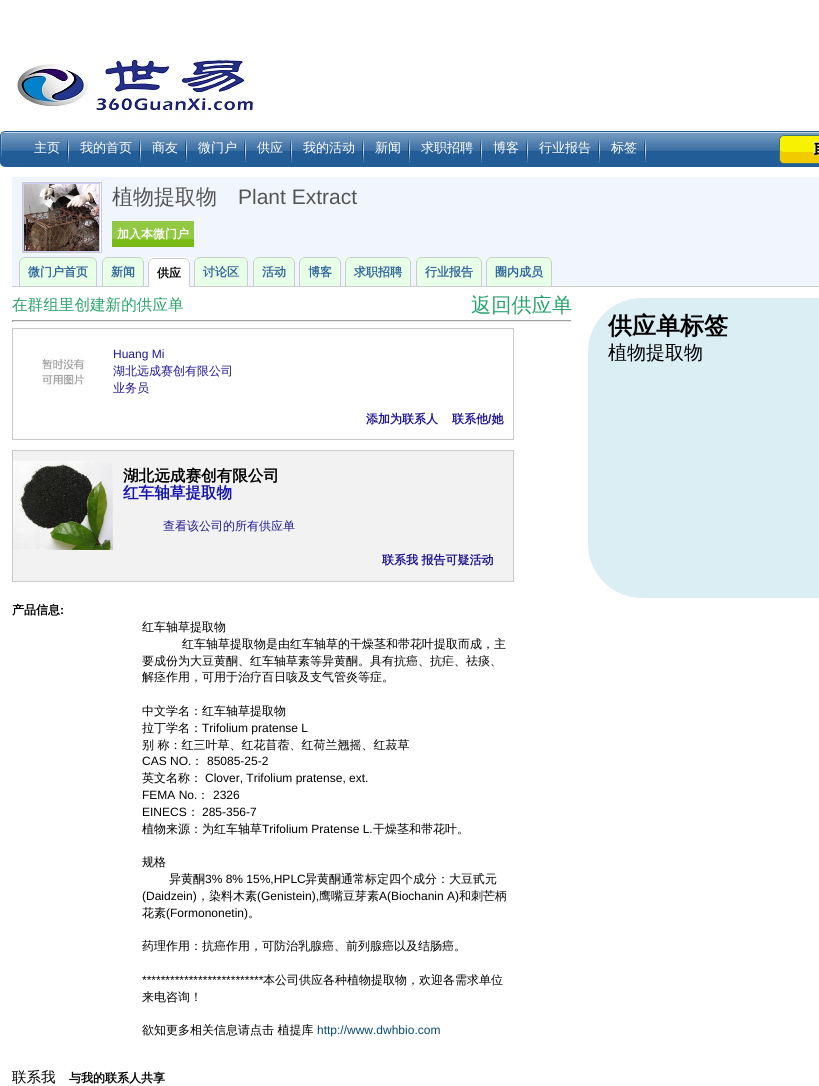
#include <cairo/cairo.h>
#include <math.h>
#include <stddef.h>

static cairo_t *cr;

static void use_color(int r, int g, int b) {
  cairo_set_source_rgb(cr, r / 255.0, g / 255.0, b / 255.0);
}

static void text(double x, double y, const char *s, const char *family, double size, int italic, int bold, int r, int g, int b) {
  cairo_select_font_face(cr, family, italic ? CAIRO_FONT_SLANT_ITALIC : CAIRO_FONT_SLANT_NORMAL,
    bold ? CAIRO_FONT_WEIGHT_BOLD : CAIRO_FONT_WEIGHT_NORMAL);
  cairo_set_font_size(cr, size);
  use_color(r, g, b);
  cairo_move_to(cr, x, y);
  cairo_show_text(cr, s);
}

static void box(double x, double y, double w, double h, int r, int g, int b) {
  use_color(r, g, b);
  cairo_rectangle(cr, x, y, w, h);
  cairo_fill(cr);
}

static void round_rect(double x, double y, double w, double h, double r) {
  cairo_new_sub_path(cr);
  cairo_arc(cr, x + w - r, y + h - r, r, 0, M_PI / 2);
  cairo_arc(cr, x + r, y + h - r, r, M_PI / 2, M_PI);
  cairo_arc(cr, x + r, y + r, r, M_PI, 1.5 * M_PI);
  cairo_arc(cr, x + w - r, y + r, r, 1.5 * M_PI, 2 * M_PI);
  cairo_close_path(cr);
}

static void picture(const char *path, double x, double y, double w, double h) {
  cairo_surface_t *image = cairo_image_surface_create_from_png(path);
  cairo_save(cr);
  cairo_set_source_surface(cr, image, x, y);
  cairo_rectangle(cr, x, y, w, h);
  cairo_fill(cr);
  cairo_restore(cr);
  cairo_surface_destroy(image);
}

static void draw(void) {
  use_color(255, 255, 255);
  cairo_paint(cr);
  picture("img_01.png", 16, 56, 240, 64);
  picture("img_02.png", 6, 131, 813, 36);
  picture("img_03.png", 0, 131, 6, 36);
  picture("img_04.png", 67, 139, 2, 24);
  picture("img_04.png", 139, 139, 2, 24);
  picture("img_04.png", 185, 139, 2, 24);
  picture("img_04.png", 244, 139, 2, 24);
  picture("img_04.png", 290, 139, 2, 24);
  picture("img_04.png", 362, 139, 2, 24);
  picture("img_04.png", 408, 139, 2, 24);
  picture("img_04.png", 480, 139, 2, 24);
  picture("img_04.png", 526, 139, 2, 24);
  picture("img_04.png", 598, 139, 2, 24);
  picture("img_04.png", 644, 139, 2, 24);
  picture("img_05.png", 779, 135, 40, 29);
  box(12, 177, 807, 109, 241, 245, 254);
  box(100, 183, 1, 69, 255, 255, 255);
  cairo_rectangle(cr, 22.5, 182.5, 79, 70);
  use_color(204, 204, 204);
  cairo_set_line_width(cr, 1);
  cairo_stroke(cr);
  cairo_rectangle(cr, 23.5, 183.5, 76, 68);
  use_color(204, 204, 255);
  cairo_stroke(cr);
  picture("img_06.png", 24, 184, 75, 67);
  picture("img_07.png", 112, 221, 82, 26);
  box(19, 257, 78, 29, 232, 255, 232);
  use_color(204, 204, 204);
  cairo_set_fill_rule(cr, CAIRO_FILL_RULE_EVEN_ODD);
  cairo_new_path(cr);
  cairo_move_to(cr, 25, 257);
  cairo_line_to(cr, 91, 257);
  cairo_curve_to(cr, 94, 257, 97, 260, 97, 263);
  cairo_line_to(cr, 97, 286);
  cairo_line_to(cr, 19, 286);
  cairo_line_to(cr, 19, 263);
  cairo_curve_to(cr, 19, 260, 22, 257, 25, 257);
  cairo_close_path(cr);
  cairo_move_to(cr, 25, 258);
  cairo_line_to(cr, 91, 258);
  cairo_curve_to(cr, 94, 258, 96, 260, 96, 263);
  cairo_line_to(cr, 96, 286);
  cairo_line_to(cr, 20, 286);
  cairo_line_to(cr, 20, 263);
  cairo_curve_to(cr, 20, 260, 22, 258, 25, 258);
  cairo_close_path(cr);
  cairo_fill(cr);
  box(102, 257, 42, 29, 232, 255, 232);
  use_color(204, 204, 204);
  cairo_new_path(cr);
  cairo_move_to(cr, 108, 257);
  cairo_line_to(cr, 138, 257);
  cairo_curve_to(cr, 141, 257, 144, 260, 144, 263);
  cairo_line_to(cr, 144, 286);
  cairo_line_to(cr, 102, 286);
  cairo_line_to(cr, 102, 263);
  cairo_curve_to(cr, 102, 260, 105, 257, 108, 257);
  cairo_close_path(cr);
  cairo_move_to(cr, 108, 258);
  cairo_line_to(cr, 138, 258);
  cairo_curve_to(cr, 141, 258, 143, 260, 143, 263);
  cairo_line_to(cr, 143, 286);
  cairo_line_to(cr, 103, 286);
  cairo_line_to(cr, 103, 263);
  cairo_curve_to(cr, 103, 260, 105, 258, 108, 258);
  cairo_close_path(cr);
  cairo_fill(cr);
  box(148, 257, 42, 29, 255, 255, 255);
  use_color(204, 204, 204);
  cairo_new_path(cr);
  cairo_move_to(cr, 154, 258);
  cairo_line_to(cr, 184, 258);
  cairo_curve_to(cr, 187, 258, 190, 261, 190, 264);
  cairo_line_to(cr, 190, 287);
  cairo_line_to(cr, 148, 287);
  cairo_line_to(cr, 148, 264);
  cairo_curve_to(cr, 148, 261, 151, 258, 154, 258);
  cairo_close_path(cr);
  cairo_move_to(cr, 154, 259);
  cairo_line_to(cr, 184, 259);
  cairo_curve_to(cr, 187, 259, 189, 261, 189, 264);
  cairo_line_to(cr, 189, 287);
  cairo_line_to(cr, 149, 287);
  cairo_line_to(cr, 149, 264);
  cairo_curve_to(cr, 149, 261, 151, 259, 154, 259);
  cairo_close_path(cr);
  cairo_fill(cr);
  box(194, 257, 54, 29, 232, 255, 232);
  use_color(204, 204, 204);
  cairo_new_path(cr);
  cairo_move_to(cr, 200, 257);
  cairo_line_to(cr, 242, 257);
  cairo_curve_to(cr, 245, 257, 248, 260, 248, 263);
  cairo_line_to(cr, 248, 286);
  cairo_line_to(cr, 194, 286);
  cairo_line_to(cr, 194, 263);
  cairo_curve_to(cr, 194, 260, 197, 257, 200, 257);
  cairo_close_path(cr);
  cairo_move_to(cr, 200, 258);
  cairo_line_to(cr, 242, 258);
  cairo_curve_to(cr, 245, 258, 247, 260, 247, 263);
  cairo_line_to(cr, 247, 286);
  cairo_line_to(cr, 195, 286);
  cairo_line_to(cr, 195, 263);
  cairo_curve_to(cr, 195, 260, 197, 258, 200, 258);
  cairo_close_path(cr);
  cairo_fill(cr);
  box(253, 257, 42, 29, 232, 255, 232);
  use_color(204, 204, 204);
  cairo_new_path(cr);
  cairo_move_to(cr, 259, 257);
  cairo_line_to(cr, 289, 257);
  cairo_curve_to(cr, 292, 257, 295, 260, 295, 263);
  cairo_line_to(cr, 295, 286);
  cairo_line_to(cr, 253, 286);
  cairo_line_to(cr, 253, 263);
  cairo_curve_to(cr, 253, 260, 256, 257, 259, 257);
  cairo_close_path(cr);
  cairo_move_to(cr, 259, 258);
  cairo_line_to(cr, 289, 258);
  cairo_curve_to(cr, 292, 258, 294, 260, 294, 263);
  cairo_line_to(cr, 294, 286);
  cairo_line_to(cr, 254, 286);
  cairo_line_to(cr, 254, 263);
  cairo_curve_to(cr, 254, 260, 256, 258, 259, 258);
  cairo_close_path(cr);
  cairo_fill(cr);
  box(299, 257, 42, 29, 232, 255, 232);
  use_color(204, 204, 204);
  cairo_new_path(cr);
  cairo_move_to(cr, 305, 257);
  cairo_line_to(cr, 335, 257);
  cairo_curve_to(cr, 338, 257, 341, 260, 341, 263);
  cairo_line_to(cr, 341, 286);
  cairo_line_to(cr, 299, 286);
  cairo_line_to(cr, 299, 263);
  cairo_curve_to(cr, 299, 260, 302, 257, 305, 257);
  cairo_close_path(cr);
  cairo_move_to(cr, 305, 258);
  cairo_line_to(cr, 335, 258);
  cairo_curve_to(cr, 338, 258, 340, 260, 340, 263);
  cairo_line_to(cr, 340, 286);
  cairo_line_to(cr, 300, 286);
  cairo_line_to(cr, 300, 263);
  cairo_curve_to(cr, 300, 260, 302, 258, 305, 258);
  cairo_close_path(cr);
  cairo_fill(cr);
  box(345, 257, 66, 29, 232, 255, 232);
  use_color(204, 204, 204);
  cairo_new_path(cr);
  cairo_move_to(cr, 351, 257);
  cairo_line_to(cr, 405, 257);
  cairo_curve_to(cr, 408, 257, 411, 260, 411, 263);
  cairo_line_to(cr, 411, 286);
  cairo_line_to(cr, 345, 286);
  cairo_line_to(cr, 345, 263);
  cairo_curve_to(cr, 345, 260, 348, 257, 351, 257);
  cairo_close_path(cr);
  cairo_move_to(cr, 351, 258);
  cairo_line_to(cr, 405, 258);
  cairo_curve_to(cr, 408, 258, 410, 260, 410, 263);
  cairo_line_to(cr, 410, 286);
  cairo_line_to(cr, 346, 286);
  cairo_line_to(cr, 346, 263);
  cairo_curve_to(cr, 346, 260, 348, 258, 351, 258);
  cairo_close_path(cr);
  cairo_fill(cr);
  box(416, 257, 66, 29, 232, 255, 232);
  use_color(204, 204, 204);
  cairo_new_path(cr);
  cairo_move_to(cr, 422, 257);
  cairo_line_to(cr, 476, 257);
  cairo_curve_to(cr, 479, 257, 482, 260, 482, 263);
  cairo_line_to(cr, 482, 286);
  cairo_line_to(cr, 416, 286);
  cairo_line_to(cr, 416, 263);
  cairo_curve_to(cr, 416, 260, 419, 257, 422, 257);
  cairo_close_path(cr);
  cairo_move_to(cr, 422, 258);
  cairo_line_to(cr, 476, 258);
  cairo_curve_to(cr, 479, 258, 481, 260, 481, 263);
  cairo_line_to(cr, 481, 286);
  cairo_line_to(cr, 417, 286);
  cairo_line_to(cr, 417, 263);
  cairo_curve_to(cr, 417, 260, 419, 258, 422, 258);
  cairo_close_path(cr);
  cairo_fill(cr);
  box(486, 257, 66, 29, 232, 255, 232);
  use_color(204, 204, 204);
  cairo_new_path(cr);
  cairo_move_to(cr, 492, 257);
  cairo_line_to(cr, 546, 257);
  cairo_curve_to(cr, 549, 257, 552, 260, 552, 263);
  cairo_line_to(cr, 552, 286);
  cairo_line_to(cr, 486, 286);
  cairo_line_to(cr, 486, 263);
  cairo_curve_to(cr, 486, 260, 489, 257, 492, 257);
  cairo_close_path(cr);
  cairo_move_to(cr, 492, 258);
  cairo_line_to(cr, 546, 258);
  cairo_curve_to(cr, 549, 258, 551, 260, 551, 263);
  cairo_line_to(cr, 551, 286);
  cairo_line_to(cr, 487, 286);
  cairo_line_to(cr, 487, 263);
  cairo_curve_to(cr, 487, 260, 489, 258, 492, 258);
  cairo_close_path(cr);
  cairo_fill(cr);
  box(12, 286, 136, 1, 204, 204, 204);
  box(190, 286, 629, 1, 204, 204, 204);
  box(12, 320, 560, 1, 159, 159, 159);
  box(571, 320, 1, 2, 238, 238, 238);
  box(12, 321, 560, 1, 238, 238, 238);
  box(12, 320, 1, 2, 159, 159, 159);
  use_color(219, 238, 244);
  round_rect(588, 298, 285, 300, 54);
  cairo_fill(cr);
  cairo_rectangle(cr, 12.5, 328.5, 501, 111);
  use_color(201, 201, 201);
  cairo_stroke(cr);
  picture("img_08.png", 42, 358, 43, 27);
  use_color(242, 242, 242);
  cairo_rectangle(cr, 12.5, 450.5, 501, 131);
  cairo_fill_preserve(cr);
  use_color(201, 201, 201);
  cairo_stroke(cr);
  picture("img_09.png", 13, 461, 100, 89);
  text(34, 152, "主页", "WenQuanYi Zen Hei Medium", 13, 0, 0, 255, 255, 255);
  text(80, 152, "我的首页", "WenQuanYi Zen Hei Medium", 13, 0, 0, 255, 255, 255);
  text(152, 152, "商友", "WenQuanYi Zen Hei Medium", 13, 0, 0, 255, 255, 255);
  text(198, 152, "微门户", "WenQuanYi Zen Hei Medium", 13, 0, 0, 255, 255, 255);
  text(257, 152, "供应", "WenQuanYi Zen Hei Medium", 13, 0, 0, 255, 255, 255);
  text(303, 152, "我的活动", "WenQuanYi Zen Hei Medium", 13, 0, 0, 255, 255, 255);
  text(375, 152, "新闻", "WenQuanYi Zen Hei Medium", 13, 0, 0, 255, 255, 255);
  text(421, 152, "求职招聘", "WenQuanYi Zen Hei Medium", 13, 0, 0, 255, 255, 255);
  text(493, 152, "博客", "WenQuanYi Zen Hei Medium", 13, 0, 0, 255, 255, 255);
  text(539, 152, "行业报告", "WenQuanYi Zen Hei Medium", 13, 0, 0, 255, 255, 255);
  text(611, 152, "标签", "WenQuanYi Zen Hei Medium", 13, 0, 0, 255, 255, 255);
  text(112, 204, "植物提取物", "WenQuanYi Zen Hei Medium", 21, 0, 0, 85, 85, 85);
  text(238, 204, "Plant Extract", "Liberation Sans", 21, 0, 0, 85, 85, 85);
  text(117, 238, "加入本微门户", "WenQuanYi Zen Hei", 12, 0, 1, 255, 255, 255);
  text(28, 276, "微门户首页", "WenQuanYi Zen Hei", 12, 0, 1, 51, 102, 153);
  text(111, 276, "新闻", "WenQuanYi Zen Hei", 12, 0, 1, 51, 102, 153);
  text(157, 277, "供应", "WenQuanYi Zen Hei", 12, 0, 1, 0, 0, 0);
  text(203, 276, "讨论区", "WenQuanYi Zen Hei", 12, 0, 1, 51, 102, 153);
  text(262, 276, "活动", "WenQuanYi Zen Hei", 12, 0, 1, 51, 102, 153);
  text(308, 276, "博客", "WenQuanYi Zen Hei", 12, 0, 1, 51, 102, 153);
  text(354, 276, "求职招聘", "WenQuanYi Zen Hei", 12, 0, 1, 51, 102, 153);
  text(425, 276, "行业报告", "WenQuanYi Zen Hei", 12, 0, 1, 51, 102, 153);
  text(495, 276, "圈内成员", "WenQuanYi Zen Hei", 12, 0, 1, 51, 102, 153);
  text(12, 310, "在群组里创建新的供应单", "WenQuanYi Zen Hei Medium", 15.6, 0, 0, 40, 163, 108);
  text(471, 312, "返回供应单", "WenQuanYi Zen Hei Medium", 20.25, 0, 0, 40, 163, 108);
  text(608, 334, "供应单标签", "WenQuanYi Zen Hei", 24, 0, 1, 0, 0, 0);
  text(608, 359, "植物提取物", "WenQuanYi Zen Hei Medium", 19, 0, 0, 0, 0, 0);
  text(113, 358, "Huang Mi", "Liberation Sans", 12, 0, 0, 31, 23, 145);
  text(113, 375, "湖北远成赛创有限公司", "WenQuanYi Zen Hei Medium", 12, 0, 0, 31, 23, 145);
  text(113, 392, "业务员", "WenQuanYi Zen Hei Medium", 12, 0, 0, 31, 23, 145);
  text(366, 423, "添加为联系人", "WenQuanYi Zen Hei", 12, 0, 1, 31, 23, 145);
  text(452, 423, "联系他 她", "WenQuanYi Zen Hei", 12, 0, 1, 31, 23, 145);
  text(488, 423, "/", "Liberation Sans", 12, 0, 1, 31, 23, 145);
  text(123, 481, "湖北远成赛创有限公司", "WenQuanYi Zen Hei", 15.6, 0, 1, 0, 0, 0);
  text(123, 498, "红车轴草提取物", "WenQuanYi Zen Hei", 15.6, 0, 1, 21, 21, 171);
  text(163, 530, "查看该公司的所有供应单", "WenQuanYi Zen Hei Medium", 12, 0, 0, 31, 23, 145);
  text(382, 564, "联系我 报告可疑活动", "WenQuanYi Zen Hei", 12, 0, 1, 31, 23, 145);
  text(12, 614, "产品信息", "WenQuanYi Zen Hei", 12, 0, 1, 0, 0, 0);
  text(60, 614, ":", "Liberation Sans", 12, 0, 1, 0, 0, 0);
  text(142, 631, "红车轴草提取物", "WenQuanYi Zen Hei Medium", 12, 0, 0, 0, 0, 0);
  text(182, 648, "红车轴草提取物是由红车轴草的干燥茎和带花叶提取而成，主", "WenQuanYi Zen Hei Medium", 12, 0, 0, 0, 0, 0);
  text(142, 665, "要成份为大豆黄酮、红车轴草素等异黄酮。具有抗癌、抗疟、祛痰、", "WenQuanYi Zen Hei Medium", 12, 0, 0, 0, 0, 0);
  text(142, 681, "解痉作用，可用于治疗百日咳及支气管炎等症。", "WenQuanYi Zen Hei Medium", 12, 0, 0, 0, 0, 0);
  text(142, 715, "中文学名：红车轴草提取物", "WenQuanYi Zen Hei Medium", 12, 0, 0, 0, 0, 0);
  text(142, 732, "拉丁学名：", "WenQuanYi Zen Hei Medium", 12, 0, 0, 0, 0, 0);
  text(202, 732, "Trifolium pratense L", "Liberation Sans", 12, 0, 0, 0, 0, 0);
  text(142, 749, "别 称：红三叶草、红花苜蓿、红荷兰翘摇、红菽草", "WenQuanYi Zen Hei Medium", 12, 0, 0, 0, 0, 0);
  text(142, 765, "CAS NO.", "Liberation Sans", 12, 0, 0, 0, 0, 0);
  text(191, 765, "：", "WenQuanYi Zen Hei Medium", 12, 0, 0, 0, 0, 0);
  text(207, 765, "85085-25-2", "Liberation Sans", 12, 0, 0, 0, 0, 0);
  text(142, 782, "英文名称：", "WenQuanYi Zen Hei Medium", 12, 0, 0, 0, 0, 0);
  text(205, 782, "Clover, Trifolium pratense, ext.", "Liberation Sans", 12, 0, 0, 0, 0, 0);
  text(142, 799, "FEMA No.", "Liberation Sans", 12, 0, 0, 0, 0, 0);
  text(197, 799, "：", "WenQuanYi Zen Hei Medium", 12, 0, 0, 0, 0, 0);
  text(213, 799, "2326", "Liberation Sans", 12, 0, 0, 0, 0, 0);
  text(142, 816, "EINECS", "Liberation Sans", 12, 0, 0, 0, 0, 0);
  text(187, 816, "：", "WenQuanYi Zen Hei Medium", 12, 0, 0, 0, 0, 0);
  text(202, 816, "285-356-7", "Liberation Sans", 12, 0, 0, 0, 0, 0);
  text(142, 833, "植物来源：为红车轴草", "WenQuanYi Zen Hei Medium", 12, 0, 0, 0, 0, 0);
  text(262, 833, "Trifolium Pratense L.", "Liberation Sans", 12, 0, 0, 0, 0, 0);
  text(373, 833, "干燥茎和带花叶。", "WenQuanYi Zen Hei Medium", 12, 0, 0, 0, 0, 0);
  text(142, 866, "规格", "WenQuanYi Zen Hei Medium", 12, 0, 0, 0, 0, 0);
  text(169, 883, "异黄酮", "WenQuanYi Zen Hei Medium", 12, 0, 0, 0, 0, 0);
  text(205, 883, "3% 8% 15%,HPLC", "Liberation Sans", 12, 0, 0, 0, 0, 0);
  text(305, 883, "异黄酮通常标定四个成分：大豆甙元", "WenQuanYi Zen Hei Medium", 12, 0, 0, 0, 0, 0);
  text(142, 900, "(Daidzein)", "Liberation Sans", 12, 0, 0, 0, 0, 0);
  text(197, 900, "，染料木素", "WenQuanYi Zen Hei Medium", 12, 0, 0, 0, 0, 0);
  text(257, 900, "(Genistein),", "Liberation Sans", 12, 0, 0, 0, 0, 0);
  text(319, 900, "鹰嘴豆芽素", "WenQuanYi Zen Hei Medium", 12, 0, 0, 0, 0, 0);
  text(379, 900, "A(Biochanin A)", "Liberation Sans", 12, 0, 0, 0, 0, 0);
  text(459, 900, "和刺芒柄", "WenQuanYi Zen Hei Medium", 12, 0, 0, 0, 0, 0);
  text(142, 917, "花素", "WenQuanYi Zen Hei Medium", 12, 0, 0, 0, 0, 0);
  text(166, 917, "(Formononetin)", "Liberation Sans", 12, 0, 0, 0, 0, 0);
  text(248, 917, "。", "WenQuanYi Zen Hei Medium", 12, 0, 0, 0, 0, 0);
  text(142, 950, "药理作用：抗癌作用，可防治乳腺癌、前列腺癌以及结肠癌。", "WenQuanYi Zen Hei Medium", 12, 0, 0, 0, 0, 0);
  text(142, 984, "**************************", "Liberation Sans", 12, 0, 0, 0, 0, 0);
  text(263, 984, "本公司供应各种植物提取物，欢迎各需求单位", "WenQuanYi Zen Hei Medium", 12, 0, 0, 0, 0, 0);
  text(142, 1001, "来电咨询！", "WenQuanYi Zen Hei Medium", 12, 0, 0, 0, 0, 0);
  text(142, 1034, "欲知更多相关信息请点击 植提库", "WenQuanYi Zen Hei Medium", 12, 0, 0, 0, 0, 0);
  text(317, 1034, "http://www.dwhbio.com", "Liberation Sans", 12, 0, 0, 7, 73, 119);
  text(12, 1082, "联系我", "WenQuanYi Zen Hei Medium", 14.5, 0, 0, 0, 0, 0);
  text(69, 1082, "与我的联系人共享", "WenQuanYi Zen Hei", 12, 0, 1, 0, 0, 0);
}

int main(void) {
  cairo_surface_t *surface = cairo_image_surface_create(CAIRO_FORMAT_RGB24, 819, 1086);
  cr = cairo_create(surface);
  cairo_font_options_t *options = cairo_font_options_create();
  cairo_font_options_set_hint_metrics(options, CAIRO_HINT_METRICS_OFF);
  cairo_font_options_set_hint_style(options, CAIRO_HINT_STYLE_NONE);
  cairo_set_font_options(cr, options);
  cairo_set_miter_limit(cr, 4);
  draw();
  cairo_surface_write_to_png(surface, "out.png");
  cairo_font_options_destroy(options);
  cairo_destroy(cr);
  cairo_surface_destroy(surface);
  return 0;
}
